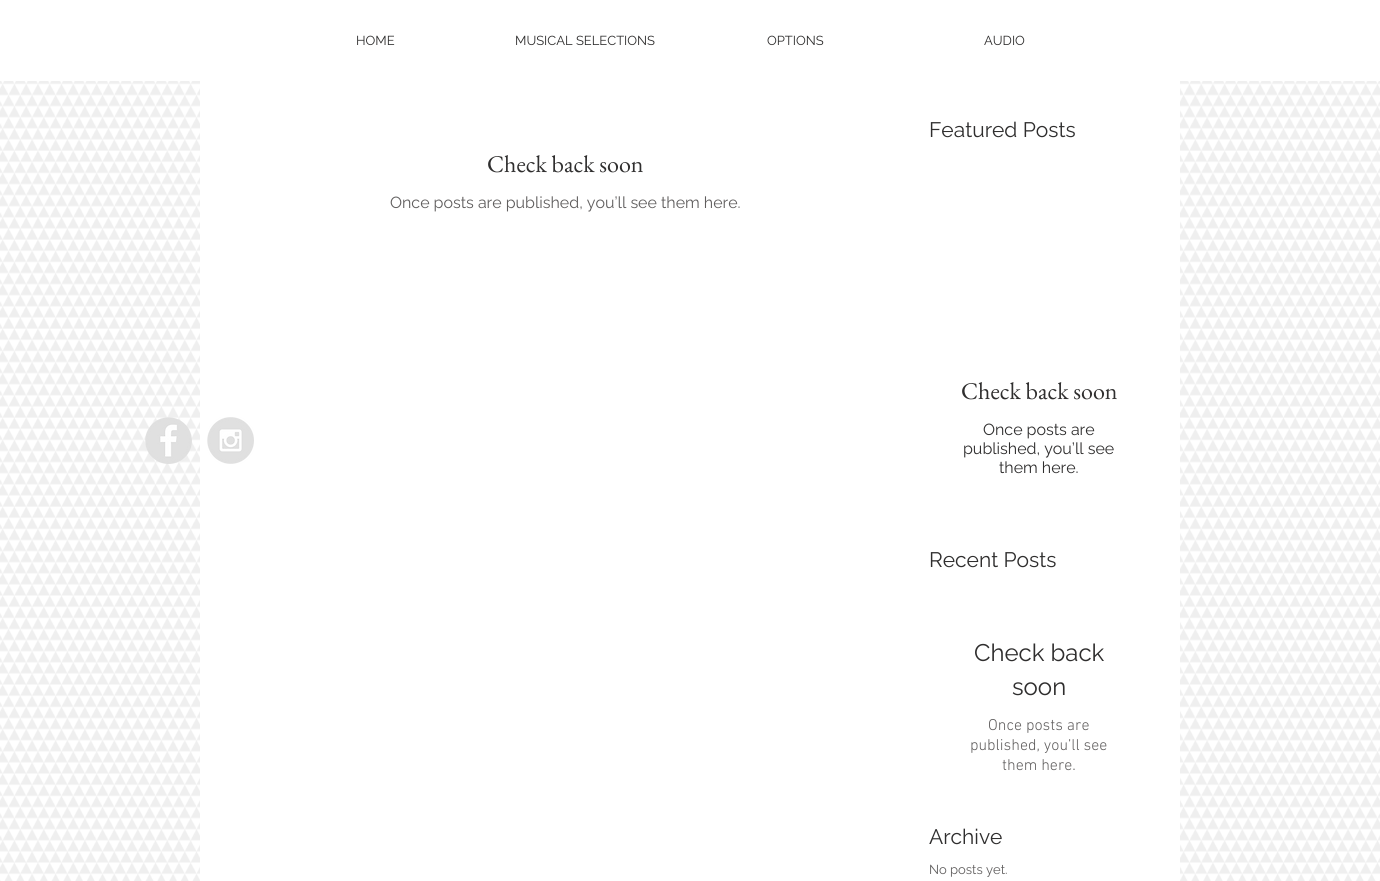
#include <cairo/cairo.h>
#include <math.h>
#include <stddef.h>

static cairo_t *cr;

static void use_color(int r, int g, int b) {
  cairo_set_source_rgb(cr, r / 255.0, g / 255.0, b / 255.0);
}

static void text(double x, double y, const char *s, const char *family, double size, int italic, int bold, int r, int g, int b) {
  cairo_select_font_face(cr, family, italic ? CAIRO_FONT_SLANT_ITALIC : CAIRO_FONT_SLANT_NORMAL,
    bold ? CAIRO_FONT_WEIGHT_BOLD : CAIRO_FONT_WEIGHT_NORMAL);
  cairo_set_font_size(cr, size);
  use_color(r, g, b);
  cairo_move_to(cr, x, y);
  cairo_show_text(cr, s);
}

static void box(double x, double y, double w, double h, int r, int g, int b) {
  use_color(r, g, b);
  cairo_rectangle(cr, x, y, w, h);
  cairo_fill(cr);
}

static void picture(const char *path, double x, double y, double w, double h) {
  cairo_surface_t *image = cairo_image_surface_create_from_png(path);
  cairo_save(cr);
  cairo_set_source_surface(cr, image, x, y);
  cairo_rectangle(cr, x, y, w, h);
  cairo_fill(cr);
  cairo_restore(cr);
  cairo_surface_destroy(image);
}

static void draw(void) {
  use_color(255, 255, 255);
  cairo_paint(cr);
  picture("img_03.png", 0, 81, 1380, 800);
  picture("img_01.png", 145, 417, 47, 47);
  box(200, 81, 980, 800, 255, 255, 255);
  picture("img_02.png", 207, 417, 47, 47);
  text(356, 45, "HOME", "Raleway", 13, 0, 0, 47, 46, 46);
  text(515, 45, "MUSICAL SELECTIONS", "Raleway", 13, 0, 0, 47, 46, 46);
  text(767, 45, "OPTIONS", "Raleway", 13, 0, 0, 47, 46, 46);
  text(984, 45, "AUDIO", "Raleway", 13, 0, 0, 47, 46, 46);
  text(929, 137, "Featured Posts", "Raleway", 21, 0, 0, 47, 46, 46);
  text(487, 172, "Check back soon", "EB Garamond", 24, 0, 0, 47, 46, 46);
  text(390, 208, "Once posts are published, you’ll see them here.", "Raleway", 16, 0, 0, 96, 94, 94);
  text(961, 399, "Check back soon", "EB Garamond", 24, 0, 0, 47, 46, 46);
  text(983, 435, "Once posts are", "Raleway", 16, 0, 0, 47, 46, 46);
  text(963, 454, "published, you’ll see", "Raleway", 16, 0, 0, 47, 46, 46);
  text(999, 473, "them here.", "Raleway", 16, 0, 0, 47, 46, 46);
  text(929, 567, "Recent Posts", "Raleway", 21, 0, 0, 47, 46, 46);
  text(974, 661, "Check back", "Raleway", 24, 0, 0, 47, 46, 46);
  text(1012, 695, "soon", "Raleway", 24, 0, 0, 47, 46, 46);
  text(988, 730, "Once posts are", "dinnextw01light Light", 16, 0, 0, 96, 94, 94);
  text(970, 750, "published, you’ll see", "dinnextw01light Light", 16, 0, 0, 96, 94, 94);
  text(1002, 770, "them here.", "dinnextw01light Light", 16, 0, 0, 96, 94, 94);
  text(929, 844, "Archive", "Raleway", 21, 0, 0, 47, 46, 46);
  text(929, 874, "No posts yet.", "Raleway", 13, 0, 0, 96, 94, 94);
}

int main(void) {
  cairo_surface_t *surface = cairo_image_surface_create(CAIRO_FORMAT_RGB24, 1380, 881);
  cr = cairo_create(surface);
  cairo_font_options_t *options = cairo_font_options_create();
  cairo_font_options_set_hint_metrics(options, CAIRO_HINT_METRICS_OFF);
  cairo_font_options_set_hint_style(options, CAIRO_HINT_STYLE_NONE);
  cairo_set_font_options(cr, options);
  cairo_set_miter_limit(cr, 4);
  draw();
  cairo_surface_write_to_png(surface, "out.png");
  cairo_font_options_destroy(options);
  cairo_destroy(cr);
  cairo_surface_destroy(surface);
  return 0;
}
